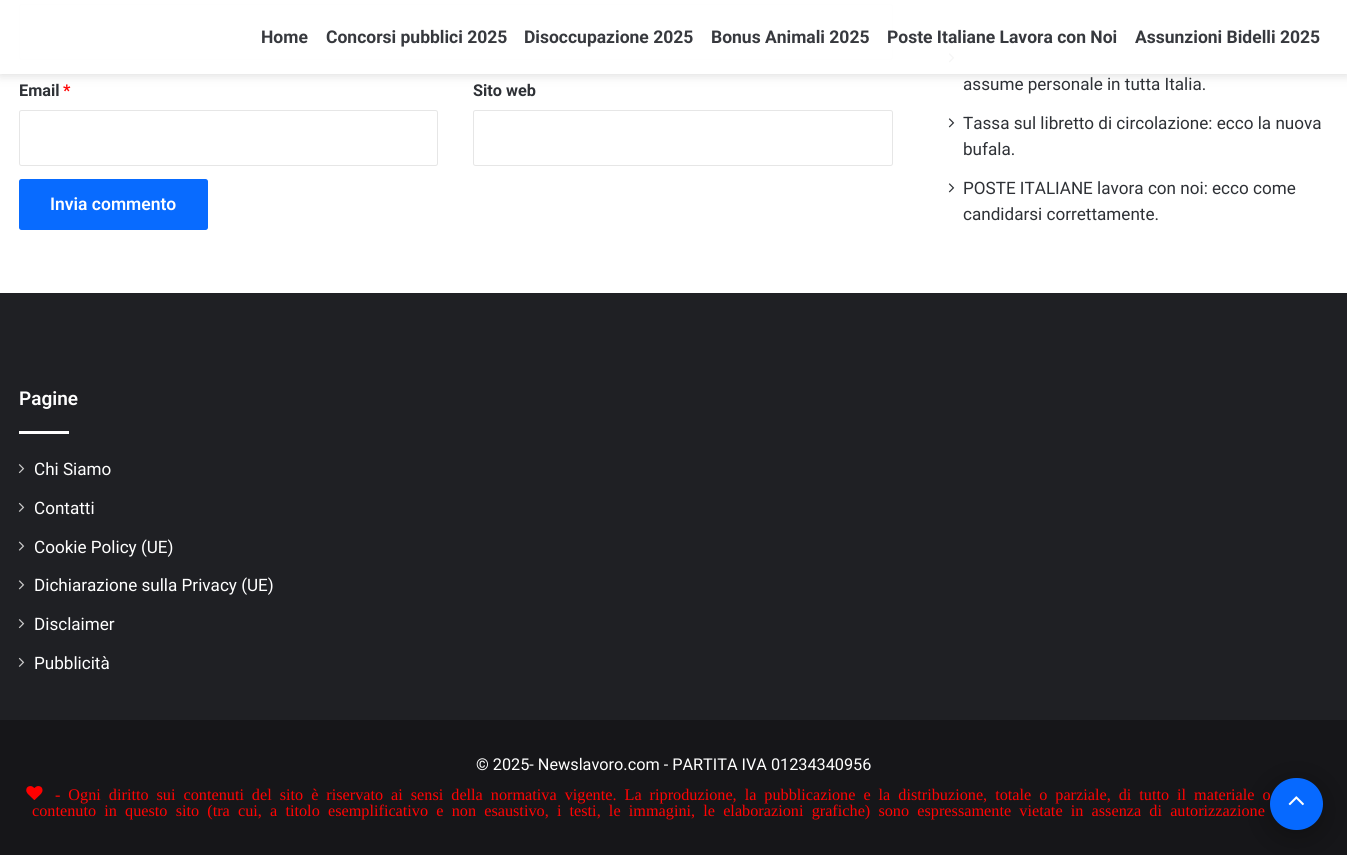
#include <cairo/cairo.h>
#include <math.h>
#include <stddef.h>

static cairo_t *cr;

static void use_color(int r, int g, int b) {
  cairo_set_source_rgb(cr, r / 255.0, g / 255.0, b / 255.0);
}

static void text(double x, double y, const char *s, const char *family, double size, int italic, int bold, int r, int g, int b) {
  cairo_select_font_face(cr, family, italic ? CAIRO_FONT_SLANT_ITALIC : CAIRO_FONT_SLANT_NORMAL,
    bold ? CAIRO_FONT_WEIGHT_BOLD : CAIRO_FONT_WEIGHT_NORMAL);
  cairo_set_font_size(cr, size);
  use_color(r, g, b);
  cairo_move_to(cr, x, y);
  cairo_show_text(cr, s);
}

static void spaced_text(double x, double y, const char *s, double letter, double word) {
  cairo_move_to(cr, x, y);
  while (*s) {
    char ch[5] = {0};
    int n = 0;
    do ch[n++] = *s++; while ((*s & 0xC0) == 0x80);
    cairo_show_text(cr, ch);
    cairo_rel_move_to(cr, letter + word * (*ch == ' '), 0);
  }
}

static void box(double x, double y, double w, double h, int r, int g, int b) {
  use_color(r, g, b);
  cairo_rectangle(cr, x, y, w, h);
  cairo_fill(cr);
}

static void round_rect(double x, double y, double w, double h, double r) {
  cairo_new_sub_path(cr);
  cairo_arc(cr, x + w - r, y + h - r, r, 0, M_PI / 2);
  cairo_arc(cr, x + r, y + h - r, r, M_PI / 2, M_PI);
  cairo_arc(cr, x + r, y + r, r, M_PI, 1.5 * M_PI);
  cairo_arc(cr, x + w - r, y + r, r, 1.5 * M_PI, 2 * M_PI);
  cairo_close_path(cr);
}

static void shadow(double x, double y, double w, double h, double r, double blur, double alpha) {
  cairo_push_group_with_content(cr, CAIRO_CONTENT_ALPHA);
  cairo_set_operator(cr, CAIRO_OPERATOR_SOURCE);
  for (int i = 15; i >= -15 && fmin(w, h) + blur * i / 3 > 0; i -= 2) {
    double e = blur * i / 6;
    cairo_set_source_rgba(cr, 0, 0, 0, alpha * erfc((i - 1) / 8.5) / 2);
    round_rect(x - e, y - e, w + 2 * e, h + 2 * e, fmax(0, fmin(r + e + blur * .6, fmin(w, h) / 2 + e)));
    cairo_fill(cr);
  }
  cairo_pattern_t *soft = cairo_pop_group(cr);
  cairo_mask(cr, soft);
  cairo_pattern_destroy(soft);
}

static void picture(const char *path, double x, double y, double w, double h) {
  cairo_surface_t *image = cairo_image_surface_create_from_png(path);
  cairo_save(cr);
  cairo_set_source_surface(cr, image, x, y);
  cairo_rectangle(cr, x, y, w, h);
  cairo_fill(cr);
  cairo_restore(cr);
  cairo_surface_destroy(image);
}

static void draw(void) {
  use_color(255, 255, 255);
  cairo_paint(cr);
  round_rect(19.5, 4.5, 873, 55, 2);
  use_color(230, 230, 230);
  cairo_set_line_width(cr, 1);
  cairo_stroke(cr);
  picture("img_01.png", 948, 53, 7, 10);
  cairo_save(cr);
  cairo_set_fill_rule(cr, CAIRO_FILL_RULE_EVEN_ODD);
  cairo_new_path(cr);
  cairo_move_to(cr, 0, 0);
  cairo_line_to(cr, 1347, 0);
  cairo_line_to(cr, 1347, 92);
  cairo_line_to(cr, 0, 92);
  cairo_close_path(cr);
  cairo_move_to(cr, 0, -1);
  cairo_line_to(cr, 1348, -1);
  cairo_line_to(cr, 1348, 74);
  cairo_line_to(cr, 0, 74);
  cairo_close_path(cr);
  cairo_clip(cr);
  use_color(99, 99, 99);
  shadow(0, 1, 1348, 75, 0, 5, 0.2);
  cairo_restore(cr);
  cairo_set_source_rgba(cr, 1, 1, 1, 0.95);
  cairo_rectangle(cr, 0, 4, 1347, 70);
  cairo_fill(cr);
  round_rect(19.5, 110.5, 418, 55, 2);
  use_color(230, 230, 230);
  cairo_stroke(cr);
  round_rect(473.5, 110.5, 419, 55, 2);
  cairo_stroke(cr);
  use_color(8, 107, 255);
  round_rect(19, 179, 189, 51, 2.5);
  cairo_fill(cr);
  picture("img_01.png", 948, 118, 7, 10);
  picture("img_01.png", 948, 183, 7, 10);
  box(0, 293, 1347, 427, 31, 32, 36);
  box(19, 431, 50, 3, 253, 253, 253);
  picture("img_02.png", 18, 464, 7, 10);
  picture("img_03.png", 18, 502, 7, 10);
  picture("img_04.png", 18, 541, 7, 10);
  picture("img_05.png", 18, 580, 7, 10);
  picture("img_02.png", 18, 619, 7, 10);
  picture("img_03.png", 18, 657, 7, 10);
  box(0, 720, 1347, 135, 22, 22, 25);
  picture("img_06.png", 26, 786, 17, 14);
  use_color(0, 0, 0);
  shadow(1270, 784, 53, 52, 26, 15.5, 0.3);
  text(261, 43, "Home", "Roboto", 17.5, 0, 1, 55, 57, 62);
  text(326, 43, "Concorsi pubblici 2025", "Roboto", 17.5, 0, 1, 55, 57, 62);
  text(524, 43, "Disoccupazione 2025", "Roboto", 17.5, 0, 1, 55, 57, 62);
  text(711, 43, "Bonus Animali 2025", "Roboto", 17.5, 0, 1, 55, 57, 62);
  text(887, 43, "Poste Italiane Lavora con Noi", "Roboto", 17.5, 0, 1, 55, 57, 62);
  text(1135, 43, "Assunzioni Bidelli 2025", "Roboto", 17.5, 0, 1, 55, 57, 62);
  text(19, 96, "Email", "Roboto", 16.25, 0, 1, 46, 49, 54);
  text(63, 96, "*", "Roboto", 16.25, 0, 1, 255, 3, 3);
  text(473, 96, "Sito web", "Roboto", 16.25, 0, 1, 46, 49, 54);
  text(50, 210, "Invia commento", "Roboto SemiBold", 17.5, 0, 0, 255, 255, 255);
  text(963, 90, "assume personale in tutta Italia.", "Roboto", 17.1, 0, 0, 46, 49, 54);
  text(963, 129, "Tassa sul libretto di circolazione: ecco la nuova", "Roboto", 17.1, 0, 0, 46, 49, 54);
  text(963, 155, "bufala.", "Roboto", 17.1, 0, 0, 46, 49, 54);
  text(963, 194, "POSTE ITALIANE lavora con noi: ecco come", "Roboto", 17.1, 0, 0, 46, 49, 54);
  text(963, 220, "candidarsi correttamente.", "Roboto", 17.1, 0, 0, 46, 49, 54);
  text(19, 405, "Pagine", "Roboto SemiBold", 19, 0, 0, 255, 255, 255);
  text(34, 475, "Chi Siamo", "Roboto", 17.1, 0, 0, 255, 255, 255);
  text(34, 514, "Contatti", "Roboto", 17.1, 0, 0, 255, 255, 255);
  text(34, 553, "Cookie Policy (UE)", "Roboto", 17.1, 0, 0, 255, 255, 255);
  text(34, 591, "Dichiarazione sulla Privacy (UE)", "Roboto", 17.1, 0, 0, 255, 255, 255);
  text(34, 630, "Disclaimer", "Roboto", 17.1, 0, 0, 255, 255, 255);
  text(34, 669, "Pubblicità", "Roboto", 17.1, 0, 0, 255, 255, 255);
  text(476, 770, "© 2025- Newslavoro.com - PARTITA IVA 01234340956", "Roboto", 16.25, 0, 0, 255, 255, 255);
  cairo_select_font_face(cr, "Liberation Serif", CAIRO_FONT_SLANT_NORMAL, CAIRO_FONT_WEIGHT_NORMAL);
  use_color(255, 3, 3);
  spaced_text(55, 800, "- Ogni diritto sui contenuti del sito è riservato ai sensi della normativa vigente. La riproduzione, la pubblicazione e la distribuzione, totale o parziale, di tutto il materiale o", 0, 3.9);
  spaced_text(32, 816, "contenuto in questo sito (tra cui, a titolo esemplificativo e non esaustivo, i testi, le immagini, le elaborazioni grafiche) sono espressamente vietate in assenza di autorizzazione", 0, 4.1);
  use_color(6, 105, 255);
  round_rect(1270, 778, 53, 52, 26);
  cairo_fill(cr);
  picture("img_07.png", 1288, 796, 16, 10);
}

int main(void) {
  cairo_surface_t *surface = cairo_image_surface_create(CAIRO_FORMAT_RGB24, 1347, 855);
  cr = cairo_create(surface);
  cairo_font_options_t *options = cairo_font_options_create();
  cairo_font_options_set_hint_metrics(options, CAIRO_HINT_METRICS_OFF);
  cairo_font_options_set_hint_style(options, CAIRO_HINT_STYLE_NONE);
  cairo_set_font_options(cr, options);
  cairo_set_miter_limit(cr, 4);
  draw();
  cairo_surface_write_to_png(surface, "out.png");
  cairo_font_options_destroy(options);
  cairo_destroy(cr);
  cairo_surface_destroy(surface);
  return 0;
}
